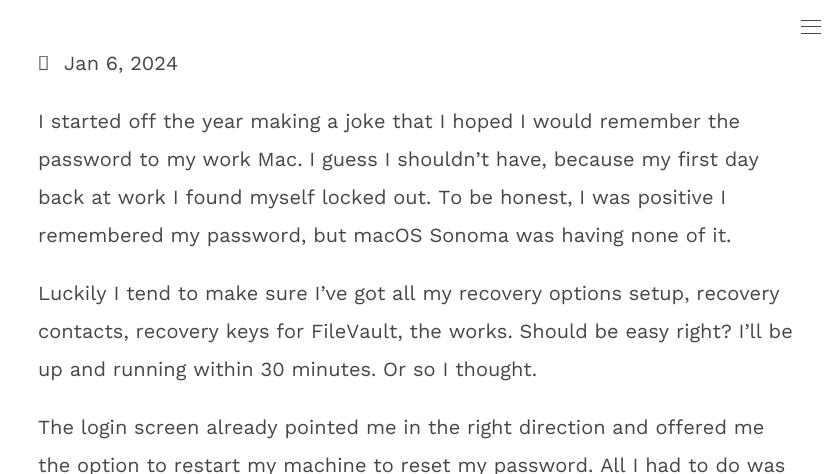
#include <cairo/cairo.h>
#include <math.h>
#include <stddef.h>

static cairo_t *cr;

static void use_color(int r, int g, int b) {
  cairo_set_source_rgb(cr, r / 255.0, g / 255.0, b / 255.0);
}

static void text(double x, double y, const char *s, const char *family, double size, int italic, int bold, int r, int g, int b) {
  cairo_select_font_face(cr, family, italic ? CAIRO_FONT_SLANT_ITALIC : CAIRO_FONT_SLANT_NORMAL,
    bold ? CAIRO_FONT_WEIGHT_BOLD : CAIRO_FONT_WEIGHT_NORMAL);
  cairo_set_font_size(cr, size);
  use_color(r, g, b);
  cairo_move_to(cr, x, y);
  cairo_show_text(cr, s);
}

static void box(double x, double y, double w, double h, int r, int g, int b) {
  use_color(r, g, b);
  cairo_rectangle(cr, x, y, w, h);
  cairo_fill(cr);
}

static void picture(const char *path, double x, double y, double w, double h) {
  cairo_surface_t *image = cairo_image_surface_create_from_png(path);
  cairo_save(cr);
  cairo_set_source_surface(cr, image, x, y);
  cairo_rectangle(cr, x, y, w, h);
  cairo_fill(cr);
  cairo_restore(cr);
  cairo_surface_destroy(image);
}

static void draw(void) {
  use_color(255, 255, 255);
  cairo_paint(cr);
  box(801, 20, 20, 1, 70, 70, 70);
  box(801, 26, 20, 1, 70, 70, 70);
  box(801, 33, 20, 1, 70, 70, 70);
  picture("img_01.png", 39, 56, 9, 14);
  text(64, 70, "Jan 6, 2024", "Work Sans", 20, 0, 0, 70, 70, 70);
  text(38, 128, "I started off the year making a joke that I hoped I would remember the", "Work Sans", 20, 0, 0, 70, 70, 70);
  text(38, 166, "password to my work Mac. I guess I shouldn’t have, because my first day", "Work Sans", 20, 0, 0, 70, 70, 70);
  text(38, 204, "back at work I found myself locked out. To be honest, I was positive I", "Work Sans", 20, 0, 0, 70, 70, 70);
  text(38, 242, "remembered my password, but macOS Sonoma was having none of it.", "Work Sans", 20, 0, 0, 70, 70, 70);
  text(38, 300, "Luckily I tend to make sure I’ve got all my recovery options setup, recovery", "Work Sans", 20, 0, 0, 70, 70, 70);
  text(38, 338, "contacts, recovery keys for FileVault, the works. Should be easy right? I’ll be", "Work Sans", 20, 0, 0, 70, 70, 70);
  text(38, 376, "up and running within 30 minutes. Or so I thought.", "Work Sans", 20, 0, 0, 70, 70, 70);
  text(38, 434, "The login screen already pointed me in the right direction and offered me", "Work Sans", 20, 0, 0, 70, 70, 70);
  text(38, 472, "the option to restart my machine to reset my password. All I had to do was", "Work Sans", 20, 0, 0, 70, 70, 70);
}

int main(void) {
  cairo_surface_t *surface = cairo_image_surface_create(CAIRO_FORMAT_RGB24, 838, 474);
  cr = cairo_create(surface);
  cairo_font_options_t *options = cairo_font_options_create();
  cairo_font_options_set_hint_metrics(options, CAIRO_HINT_METRICS_OFF);
  cairo_font_options_set_hint_style(options, CAIRO_HINT_STYLE_NONE);
  cairo_set_font_options(cr, options);
  cairo_set_miter_limit(cr, 4);
  draw();
  cairo_surface_write_to_png(surface, "out.png");
  cairo_font_options_destroy(options);
  cairo_destroy(cr);
  cairo_surface_destroy(surface);
  return 0;
}
